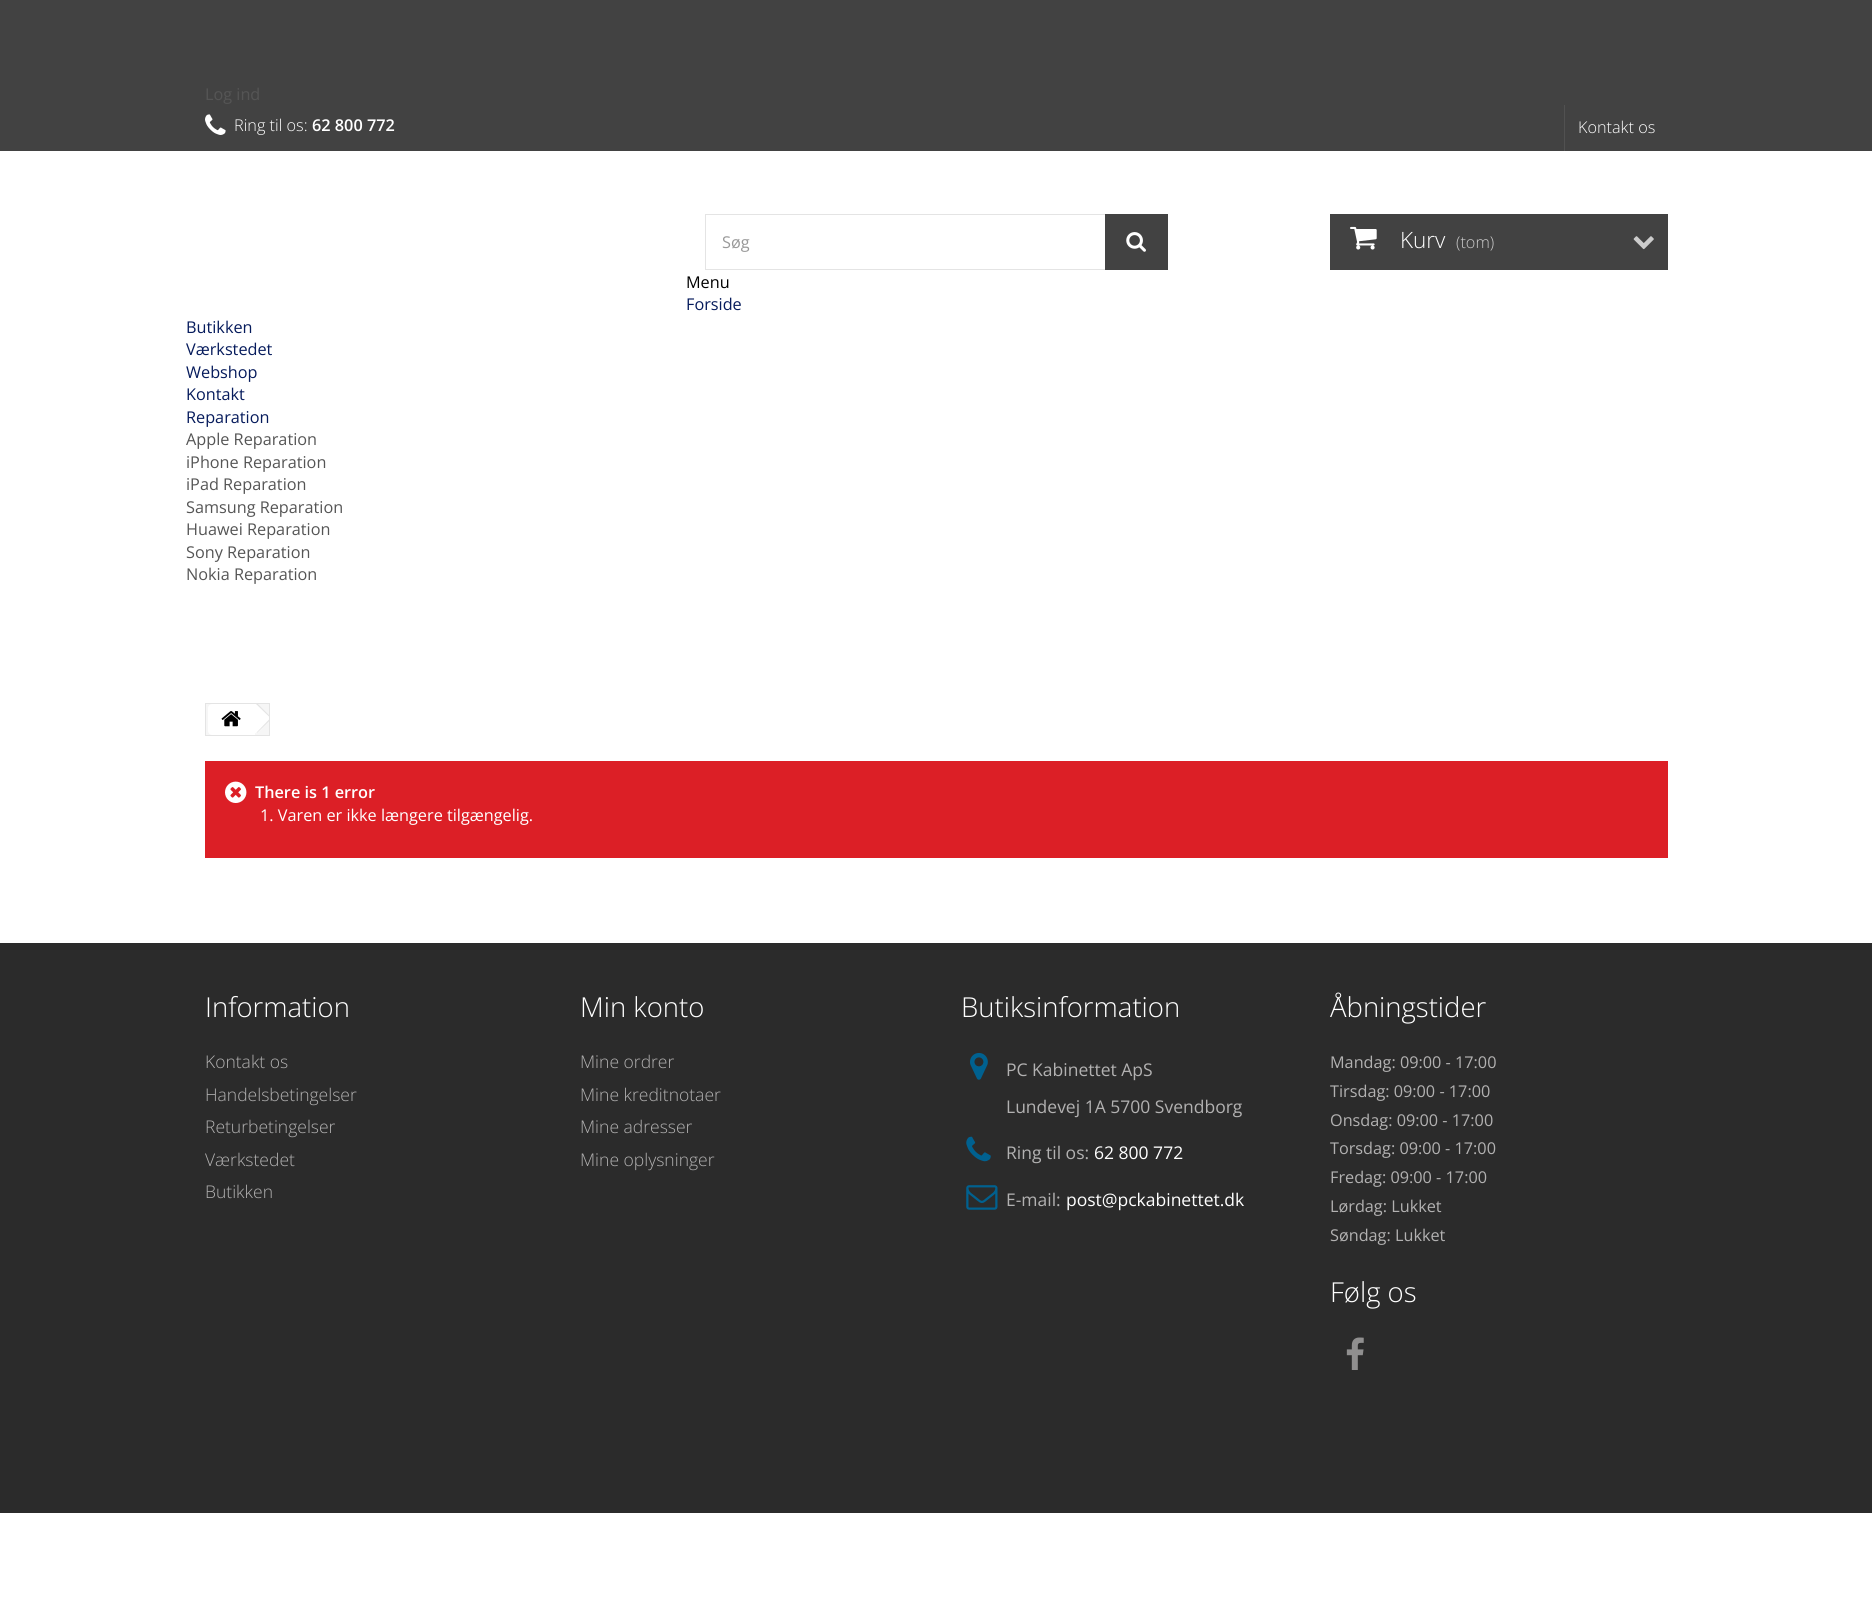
#include <cairo/cairo.h>
#include <math.h>
#include <stddef.h>

static cairo_t *cr;

static void use_color(int r, int g, int b) {
  cairo_set_source_rgb(cr, r / 255.0, g / 255.0, b / 255.0);
}

static void text(double x, double y, const char *s, const char *family, double size, int italic, int bold, int r, int g, int b) {
  cairo_select_font_face(cr, family, italic ? CAIRO_FONT_SLANT_ITALIC : CAIRO_FONT_SLANT_NORMAL,
    bold ? CAIRO_FONT_WEIGHT_BOLD : CAIRO_FONT_WEIGHT_NORMAL);
  cairo_set_font_size(cr, size);
  use_color(r, g, b);
  cairo_move_to(cr, x, y);
  cairo_show_text(cr, s);
}

static void box(double x, double y, double w, double h, int r, int g, int b) {
  use_color(r, g, b);
  cairo_rectangle(cr, x, y, w, h);
  cairo_fill(cr);
}

static void picture(const char *path, double x, double y, double w, double h) {
  cairo_surface_t *image = cairo_image_surface_create_from_png(path);
  cairo_save(cr);
  cairo_set_source_surface(cr, image, x, y);
  cairo_rectangle(cr, x, y, w, h);
  cairo_fill(cr);
  cairo_restore(cr);
  cairo_surface_destroy(image);
}

static void draw(void) {
  use_color(255, 255, 255);
  cairo_paint(cr);
  box(0, 0, 1872, 151, 66, 66, 66);
  picture("img_01.png", 205, 114, 21, 21);
  box(1564, 105, 1, 46, 81, 81, 81);
  cairo_rectangle(cr, 705.5, 214.5, 462, 55);
  use_color(228, 228, 228);
  cairo_set_line_width(cr, 1);
  cairo_stroke(cr);
  box(1105, 214, 63, 56, 66, 66, 66);
  picture("img_02.png", 1126, 232, 20, 20);
  box(1330, 214, 338, 56, 66, 66, 66);
  picture("img_03.png", 1350, 226, 27, 24);
  picture("img_04.png", 1633, 236, 21, 14);
  use_color(246, 246, 246);
  cairo_rectangle(cr, 205.5, 703.5, 64, 32);
  cairo_fill_preserve(cr);
  use_color(228, 228, 228);
  cairo_stroke(cr);
  use_color(255, 255, 255);
  cairo_new_path(cr);
  cairo_move_to(cr, 212, 704);
  cairo_line_to(cr, 255, 704);
  cairo_line_to(cr, 255, 735);
  cairo_line_to(cr, 212, 735);
  cairo_curve_to(cr, 210, 735, 208, 733, 208, 731);
  cairo_line_to(cr, 208, 708);
  cairo_curve_to(cr, 208, 706, 210, 704, 212, 704);
  cairo_close_path(cr);
  cairo_fill(cr);
  picture("img_05.png", 221, 711, 20, 16);
  cairo_save(cr);
  cairo_rectangle(cr, 206, 704, 63, 31);
  cairo_clip(cr);
  cairo_new_path(cr);
  cairo_move_to(cr, 258, 704);
  cairo_line_to(cr, 270.5, 716.5);
  cairo_curve_to(cr, 271.5, 717.5, 271.5, 719, 270.5, 720);
  cairo_line_to(cr, 258, 732.5);
  cairo_curve_to(cr, 257, 733.5, 255.5, 733.5, 254.5, 732.5);
  cairo_line_to(cr, 242, 720);
  cairo_curve_to(cr, 241, 719, 241, 717.5, 242, 716.5);
  cairo_line_to(cr, 254.5, 704);
  cairo_curve_to(cr, 255.5, 703, 257, 703, 258, 704);
  cairo_close_path(cr);
  cairo_fill(cr);
  use_color(228, 228, 228);
  cairo_new_path(cr);
  cairo_move_to(cr, 257, 703);
  cairo_line_to(cr, 271.5, 717.5);
  cairo_line_to(cr, 270.5, 718);
  cairo_line_to(cr, 256, 704);
  cairo_close_path(cr);
  cairo_move_to(cr, 270.5, 718);
  cairo_line_to(cr, 271.5, 719);
  cairo_line_to(cr, 257, 733);
  cairo_line_to(cr, 256.5, 732.5);
  cairo_close_path(cr);
  cairo_fill(cr);
  cairo_restore(cr);
  box(205, 761, 1463, 97, 220, 31, 38);
  picture("img_06.png", 225, 781, 22, 22);
  box(0, 943, 1872, 570, 43, 43, 43);
  picture("img_07.png", 970, 1053, 18, 27);
  picture("img_08.png", 966, 1136, 25, 26);
  picture("img_09.png", 966, 1185, 32, 25);
  picture("img_10.png", 1346, 1337, 18, 33);
  text(205, 100, "Log ind", "Open Sans", 16.25, 0, 0, 85, 85, 85);
  text(234, 131, "Ring til os:", "Open Sans Light", 16.25, 0, 0, 255, 255, 255);
  text(312, 131, "62 800 772", "Open Sans SemiBold", 16.25, 0, 0, 255, 255, 255);
  text(1578, 133, "Kontakt os", "Open Sans Light", 16.25, 0, 0, 255, 255, 255);
  text(722, 248, "Søg", "Open Sans", 16.25, 0, 0, 153, 153, 153);
  text(1400, 248, "Kurv", "Open Sans Light", 22.5, 0, 0, 255, 255, 255);
  text(1456, 248, "(tom)", "Open Sans Light", 16.25, 0, 0, 204, 204, 204);
  text(686, 288, "Menu", "Open Sans", 16.25, 0, 0, 0, 0, 0);
  text(686, 310, "Forside", "Open Sans", 16.25, 0, 0, 6, 27, 92);
  text(186, 333, "Butikken", "Open Sans", 16.25, 0, 0, 6, 27, 92);
  text(186, 355, "Værkstedet", "Open Sans", 16.25, 0, 0, 6, 27, 92);
  text(186, 378, "Webshop", "Open Sans", 16.25, 0, 0, 6, 27, 92);
  text(186, 400, "Kontakt", "Open Sans", 16.25, 0, 0, 6, 27, 92);
  text(186, 423, "Reparation", "Open Sans", 16.25, 0, 0, 6, 27, 92);
  text(186, 445, "Apple Reparation", "Open Sans", 16.25, 0, 0, 85, 85, 85);
  text(186, 468, "iPhone Reparation", "Open Sans", 16.25, 0, 0, 85, 85, 85);
  text(186, 490, "iPad Reparation", "Open Sans", 16.25, 0, 0, 85, 85, 85);
  text(186, 513, "Samsung Reparation", "Open Sans", 16.25, 0, 0, 85, 85, 85);
  text(186, 535, "Huawei Reparation", "Open Sans", 16.25, 0, 0, 85, 85, 85);
  text(186, 558, "Sony Reparation", "Open Sans", 16.25, 0, 0, 85, 85, 85);
  text(186, 580, "Nokia Reparation", "Open Sans", 16.25, 0, 0, 85, 85, 85);
  text(255, 798, "There is 1 error", "Open Sans SemiBold", 16.25, 0, 0, 255, 255, 255);
  text(260, 821, "1. Varen er ikke længere tilgængelig.", "Open Sans", 16.25, 0, 0, 255, 255, 255);
  text(205, 1017, "Information", "Open Sans Light", 27.5, 0, 0, 255, 255, 255);
  text(205, 1068, "Kontakt os", "Open Sans Light", 17.5, 0, 0, 178, 177, 177);
  text(205, 1101, "Handelsbetingelser", "Open Sans Light", 17.5, 0, 0, 178, 177, 177);
  text(205, 1133, "Returbetingelser", "Open Sans Light", 17.5, 0, 0, 178, 177, 177);
  text(205, 1166, "Værkstedet", "Open Sans Light", 17.5, 0, 0, 178, 177, 177);
  text(205, 1198, "Butikken", "Open Sans Light", 17.5, 0, 0, 178, 177, 177);
  text(580, 1017, "Min konto", "Open Sans Light", 27.5, 0, 0, 255, 255, 255);
  text(580, 1068, "Mine ordrer", "Open Sans Light", 17.5, 0, 0, 178, 177, 177);
  text(580, 1101, "Mine kreditnotaer", "Open Sans Light", 17.5, 0, 0, 178, 177, 177);
  text(580, 1133, "Mine adresser", "Open Sans Light", 17.5, 0, 0, 178, 177, 177);
  text(580, 1166, "Mine oplysninger", "Open Sans Light", 17.5, 0, 0, 178, 177, 177);
  text(961, 1017, "Butiksinformation", "Open Sans Light", 27.5, 0, 0, 255, 255, 255);
  text(1006, 1076, "PC Kabinettet ApS", "Open Sans", 17.5, 0, 0, 178, 177, 177);
  text(1006, 1113, "Lundevej 1A 5700 Svendborg", "Open Sans", 17.5, 0, 0, 178, 177, 177);
  text(1006, 1159, "Ring til os:", "Open Sans", 17.5, 0, 0, 178, 177, 177);
  text(1094, 1159, "62 800 772", "Open Sans", 17.5, 0, 0, 255, 255, 255);
  text(1006, 1206, "E-mail:", "Open Sans", 17.5, 0, 0, 178, 177, 177);
  text(1066, 1206, "post@pckabinettet.dk", "Open Sans", 17.5, 0, 0, 255, 255, 255);
  text(1330, 1017, "Åbningstider", "Open Sans Light", 27.5, 0, 0, 255, 255, 255);
  text(1330, 1068, "Mandag: 09:00 - 17:00", "Open Sans", 16.25, 0, 0, 178, 177, 177);
  text(1330, 1097, "Tirsdag: 09:00 - 17:00", "Open Sans", 16.25, 0, 0, 178, 177, 177);
  text(1330, 1126, "Onsdag: 09:00 - 17:00", "Open Sans", 16.25, 0, 0, 178, 177, 177);
  text(1330, 1154, "Torsdag: 09:00 - 17:00", "Open Sans", 16.25, 0, 0, 178, 177, 177);
  text(1330, 1183, "Fredag: 09:00 - 17:00", "Open Sans", 16.25, 0, 0, 178, 177, 177);
  text(1330, 1212, "Lørdag: Lukket", "Open Sans", 16.25, 0, 0, 178, 177, 177);
  text(1330, 1241, "Søndag: Lukket", "Open Sans", 16.25, 0, 0, 178, 177, 177);
  text(1330, 1302, "Følg os", "Open Sans Light", 27.5, 0, 0, 255, 255, 255);
}

int main(void) {
  cairo_surface_t *surface = cairo_image_surface_create(CAIRO_FORMAT_RGB24, 1872, 1623);
  cr = cairo_create(surface);
  cairo_font_options_t *options = cairo_font_options_create();
  cairo_font_options_set_hint_metrics(options, CAIRO_HINT_METRICS_OFF);
  cairo_font_options_set_hint_style(options, CAIRO_HINT_STYLE_NONE);
  cairo_set_font_options(cr, options);
  cairo_set_miter_limit(cr, 4);
  draw();
  cairo_surface_write_to_png(surface, "out.png");
  cairo_font_options_destroy(options);
  cairo_destroy(cr);
  cairo_surface_destroy(surface);
  return 0;
}
